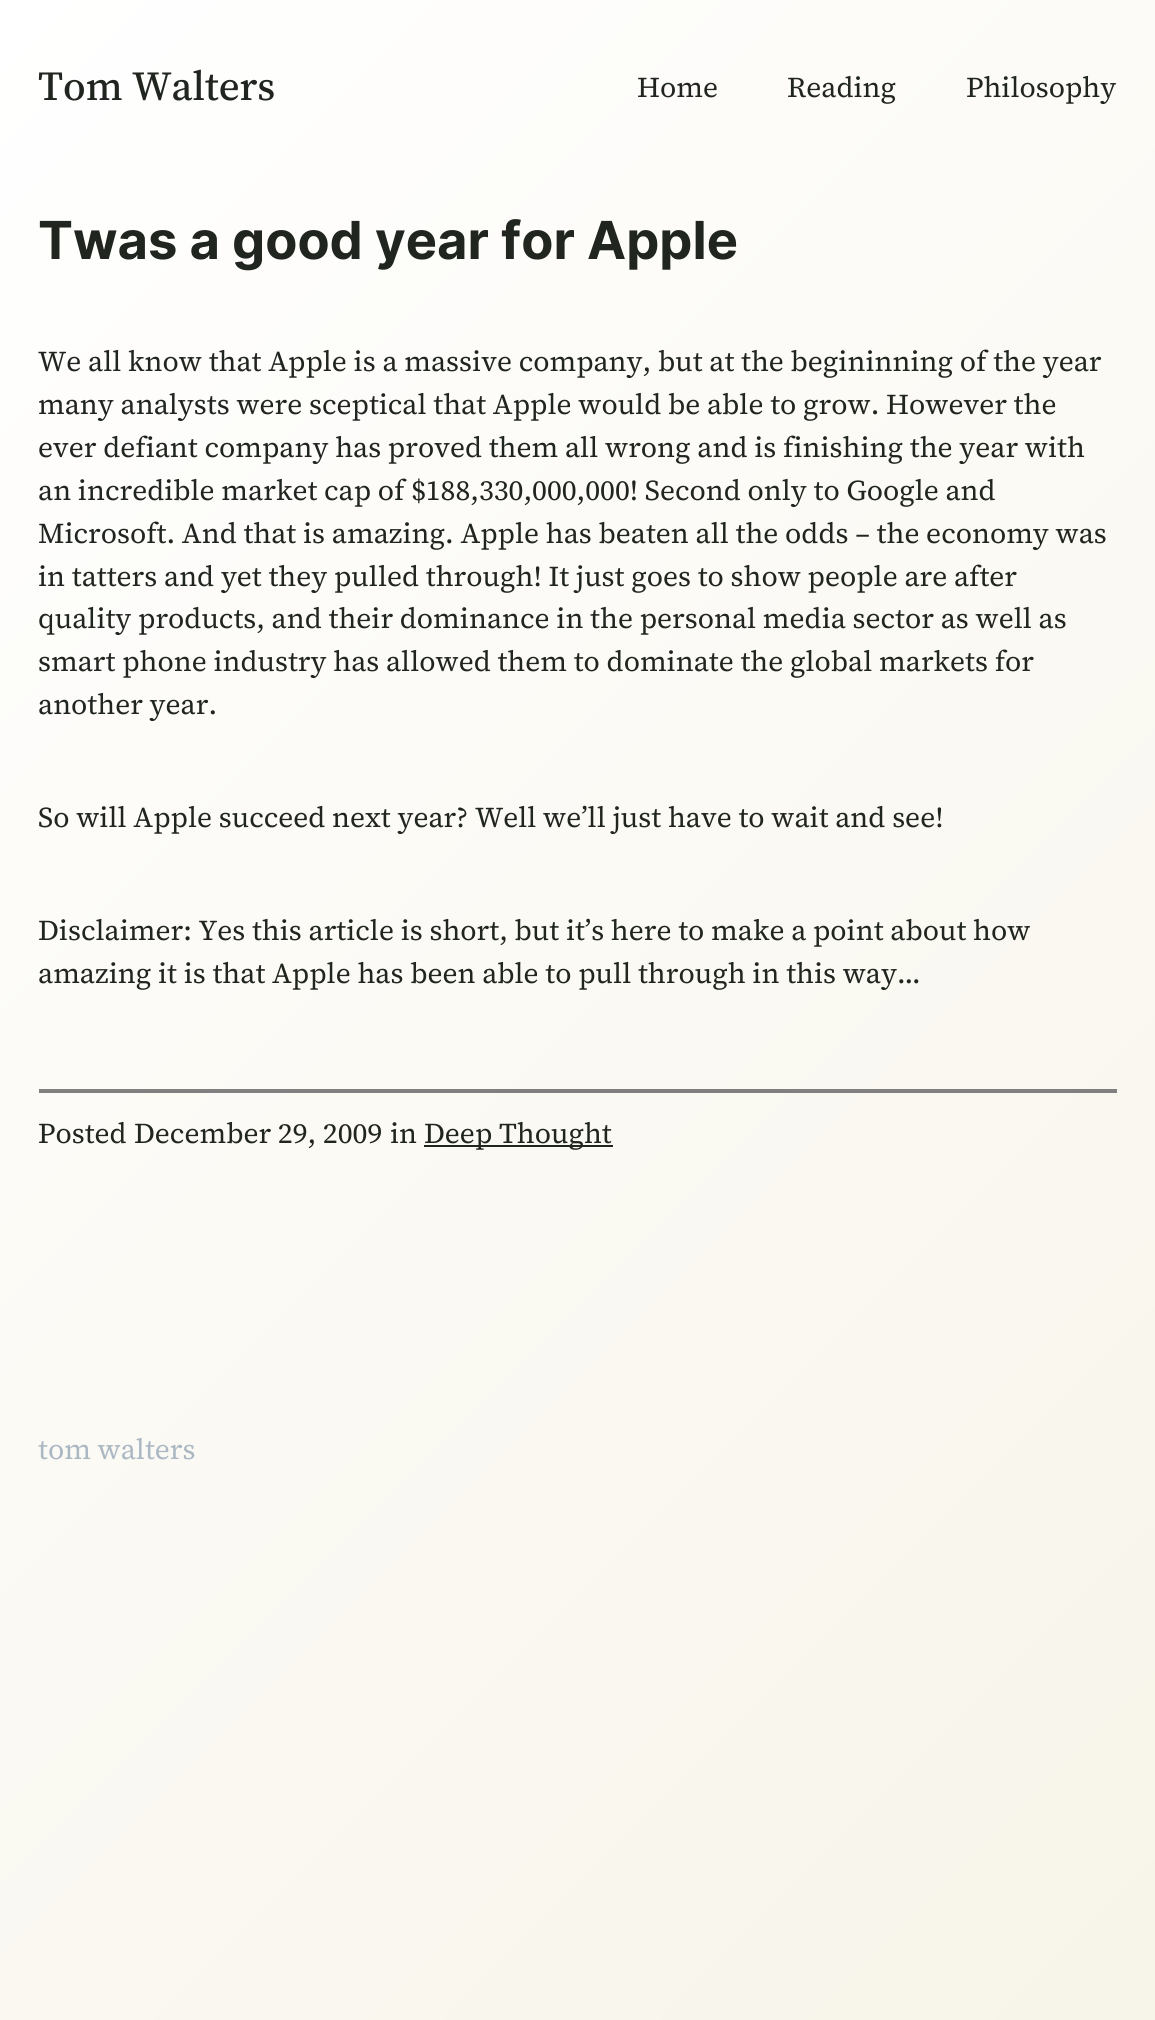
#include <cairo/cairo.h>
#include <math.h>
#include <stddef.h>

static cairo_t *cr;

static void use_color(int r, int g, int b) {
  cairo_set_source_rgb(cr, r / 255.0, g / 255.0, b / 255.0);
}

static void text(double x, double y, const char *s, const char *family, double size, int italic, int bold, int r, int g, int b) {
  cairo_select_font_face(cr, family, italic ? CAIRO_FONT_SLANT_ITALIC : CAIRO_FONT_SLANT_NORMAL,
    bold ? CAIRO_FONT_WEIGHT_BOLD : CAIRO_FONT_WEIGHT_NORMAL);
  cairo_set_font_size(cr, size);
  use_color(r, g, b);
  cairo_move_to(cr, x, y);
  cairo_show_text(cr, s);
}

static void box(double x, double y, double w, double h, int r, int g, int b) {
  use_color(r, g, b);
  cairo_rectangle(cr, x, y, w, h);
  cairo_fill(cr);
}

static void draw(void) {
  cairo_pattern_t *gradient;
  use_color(255, 255, 255);
  cairo_paint(cr);
  gradient = cairo_pattern_create_linear(-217, 217, 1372, 1805);
  cairo_pattern_add_color_stop_rgba(gradient, 0, 1, 1, 1, 1);
  cairo_pattern_add_color_stop_rgba(gradient, 1, 0.969, 0.957, 0.914, 1);
  cairo_set_source(cr, gradient);
  cairo_pattern_destroy(gradient);
  cairo_rectangle(cr, 0, 0, 1155, 2020);
  cairo_fill(cr);
  box(39, 1089, 1078, 4, 128, 128, 128);
  box(424, 1145, 189, 2, 33, 37, 31);
  text(38, 100, "Tom Walters", "Source Serif 4 Medium", 41.25, 0, 0, 33, 37, 31);
  text(637, 97, "Home", "Source Serif 4", 28.65, 0, 0, 33, 37, 31);
  text(787, 97, "Reading", "Source Serif 4", 28.65, 0, 0, 33, 37, 31);
  text(966, 97, "Philosophy", "Source Serif 4", 28.65, 0, 0, 33, 37, 31);
  text(38, 259, "Twas a good year for Apple", "Inter", 52.4, 0, 1, 33, 37, 31);
  text(38, 371, "We all know that Apple is a massive company, but at the begininning of the year", "Source Serif 4", 28.65, 0, 0, 33, 37, 31);
  text(38, 414, "many analysts were sceptical that Apple would be able to grow. However the", "Source Serif 4", 28.65, 0, 0, 33, 37, 31);
  text(38, 457, "ever defiant company has proved them all wrong and is finishing the year with", "Source Serif 4", 28.65, 0, 0, 33, 37, 31);
  text(38, 500, "an incredible market cap of $188,330,000,000! Second only to Google and", "Source Serif 4", 28.65, 0, 0, 33, 37, 31);
  text(38, 543, "Microsoft. And that is amazing. Apple has beaten all the odds – the economy was", "Source Serif 4", 28.65, 0, 0, 33, 37, 31);
  text(38, 586, "in tatters and yet they pulled through! It just goes to show people are after", "Source Serif 4", 28.65, 0, 0, 33, 37, 31);
  text(38, 628, "quality products, and their dominance in the personal media sector as well as", "Source Serif 4", 28.65, 0, 0, 33, 37, 31);
  text(38, 671, "smart phone industry has allowed them to dominate the global markets for", "Source Serif 4", 28.65, 0, 0, 33, 37, 31);
  text(38, 714, "another year.", "Source Serif 4", 28.65, 0, 0, 33, 37, 31);
  text(38, 827, "So will Apple succeed next year? Well we’ll just have to wait and see!", "Source Serif 4", 28.65, 0, 0, 33, 37, 31);
  text(38, 940, "Disclaimer: Yes this article is short, but it’s here to make a point about how", "Source Serif 4", 28.65, 0, 0, 33, 37, 31);
  text(38, 983, "amazing it is that Apple has been able to pull through in this way…", "Source Serif 4", 28.65, 0, 0, 33, 37, 31);
  text(38, 1143, "Posted", "Source Serif 4", 28.65, 0, 0, 33, 37, 31);
  text(134, 1143, "December 29, 2009", "Source Serif 4", 28.65, 0, 0, 33, 37, 31);
  text(390, 1143, "in", "Source Serif 4", 28.65, 0, 0, 33, 37, 31);
  text(424, 1143, "Deep Thought", "Source Serif 4", 28.65, 0, 0, 33, 37, 31);
  text(38, 1459, "tom walters", "Source Serif 4", 28.65, 0, 0, 171, 184, 195);
}

int main(void) {
  cairo_surface_t *surface = cairo_image_surface_create(CAIRO_FORMAT_RGB24, 1155, 2020);
  cr = cairo_create(surface);
  cairo_font_options_t *options = cairo_font_options_create();
  cairo_font_options_set_hint_metrics(options, CAIRO_HINT_METRICS_OFF);
  cairo_font_options_set_hint_style(options, CAIRO_HINT_STYLE_NONE);
  cairo_set_font_options(cr, options);
  cairo_set_miter_limit(cr, 4);
  draw();
  cairo_surface_write_to_png(surface, "out.png");
  cairo_font_options_destroy(options);
  cairo_destroy(cr);
  cairo_surface_destroy(surface);
  return 0;
}
